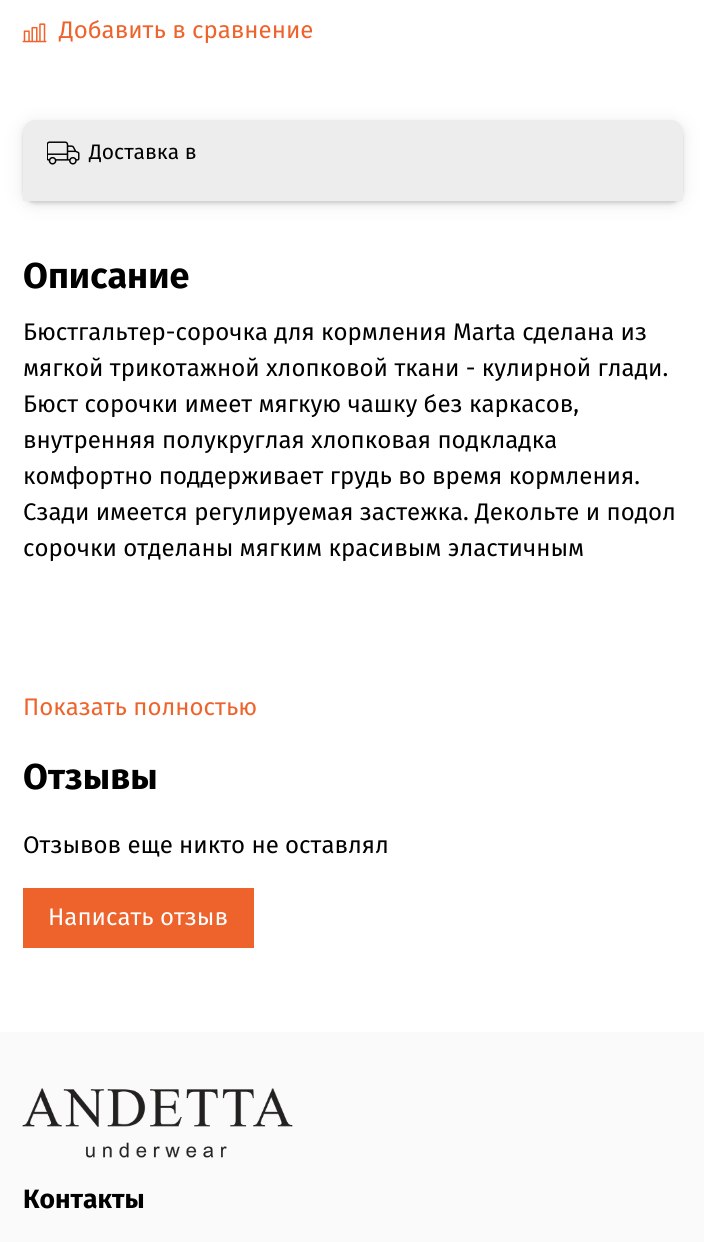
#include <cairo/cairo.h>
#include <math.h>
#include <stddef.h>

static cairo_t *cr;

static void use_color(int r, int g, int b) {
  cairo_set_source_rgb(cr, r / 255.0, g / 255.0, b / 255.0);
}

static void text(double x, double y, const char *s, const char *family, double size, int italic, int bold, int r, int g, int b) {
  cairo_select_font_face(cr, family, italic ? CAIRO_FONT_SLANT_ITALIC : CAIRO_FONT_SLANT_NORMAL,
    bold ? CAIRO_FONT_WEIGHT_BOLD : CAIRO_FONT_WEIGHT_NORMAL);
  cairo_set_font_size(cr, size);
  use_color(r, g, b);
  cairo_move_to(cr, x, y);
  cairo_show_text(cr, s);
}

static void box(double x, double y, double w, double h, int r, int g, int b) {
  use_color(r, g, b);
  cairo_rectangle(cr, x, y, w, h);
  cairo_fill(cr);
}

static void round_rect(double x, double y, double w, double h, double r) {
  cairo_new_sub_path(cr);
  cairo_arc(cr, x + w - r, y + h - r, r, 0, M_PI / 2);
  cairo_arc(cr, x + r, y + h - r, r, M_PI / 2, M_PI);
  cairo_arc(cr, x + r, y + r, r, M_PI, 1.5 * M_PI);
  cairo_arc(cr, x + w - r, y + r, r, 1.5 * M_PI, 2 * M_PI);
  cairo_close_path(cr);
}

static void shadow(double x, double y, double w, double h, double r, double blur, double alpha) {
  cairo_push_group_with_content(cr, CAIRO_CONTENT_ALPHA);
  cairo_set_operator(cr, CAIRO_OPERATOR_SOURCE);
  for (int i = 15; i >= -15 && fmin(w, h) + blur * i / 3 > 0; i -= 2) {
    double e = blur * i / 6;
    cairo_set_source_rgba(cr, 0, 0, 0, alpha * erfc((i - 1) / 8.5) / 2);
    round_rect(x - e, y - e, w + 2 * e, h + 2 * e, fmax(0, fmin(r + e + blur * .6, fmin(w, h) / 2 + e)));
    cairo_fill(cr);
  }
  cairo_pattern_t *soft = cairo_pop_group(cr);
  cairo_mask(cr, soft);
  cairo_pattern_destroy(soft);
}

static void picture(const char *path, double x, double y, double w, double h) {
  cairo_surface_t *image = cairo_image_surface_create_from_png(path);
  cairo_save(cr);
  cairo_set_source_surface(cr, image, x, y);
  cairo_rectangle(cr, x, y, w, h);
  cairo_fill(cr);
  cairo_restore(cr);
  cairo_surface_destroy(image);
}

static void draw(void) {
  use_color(255, 255, 255);
  cairo_paint(cr);
  picture("img_01.png", 22, 23, 25, 20);
  use_color(0, 0, 0);
  shadow(23, 123, 660, 81, 12, 12, 0.05);
  shadow(23, 123, 660, 81, 12, 6, 0.05);
  shadow(23, 123, 660, 81, 12, 3, 0.05);
  shadow(23, 123, 660, 81, 12, 1.5, 0.05);
  shadow(23, 122, 660, 81, 12, 1, 0.05);
  use_color(237, 237, 237);
  cairo_new_path(cr);
  cairo_move_to(cr, 35, 120);
  cairo_line_to(cr, 671, 120);
  cairo_curve_to(cr, 677.5, 120, 683, 125.5, 683, 132);
  cairo_line_to(cr, 683, 201);
  cairo_line_to(cr, 23, 201);
  cairo_line_to(cr, 23, 132);
  cairo_curve_to(cr, 23, 125.5, 28.5, 120, 35, 120);
  cairo_close_path(cr);
  cairo_fill(cr);
  picture("img_02.png", 47, 141, 33, 24);
  box(23, 888, 231, 60, 238, 99, 44);
  box(0, 1032, 704, 210, 250, 250, 250);
  picture("img_03.png", 22, 1088, 271, 70);
  text(59, 38, "Добавить в сравнение", "Fira Sans", 24, 0, 0, 238, 99, 44);
  text(89, 159, "Доставка в", "Fira Sans", 21, 0, 0, 0, 0, 0);
  text(23, 288, "Описание", "Fira Sans", 36, 0, 1, 0, 0, 0);
  text(23, 340, "Бюстгальтер-сорочка для кормления Marta сделана из", "Fira Sans", 24, 0, 0, 0, 0, 0);
  text(23, 376, "мягкой трикотажной хлопковой ткани - кулирной глади.", "Fira Sans", 24, 0, 0, 0, 0, 0);
  text(23, 412, "Бюст сорочки имеет мягкую чашку без каркасов,", "Fira Sans", 24, 0, 0, 0, 0, 0);
  text(23, 448, "внутренняя полукруглая хлопковая подкладка", "Fira Sans", 24, 0, 0, 0, 0, 0);
  text(23, 484, "комфортно поддерживает грудь во время кормления.", "Fira Sans", 24, 0, 0, 0, 0, 0);
  text(23, 520, "Сзади имеется регулируемая застежка. Декольте и подол", "Fira Sans", 24, 0, 0, 0, 0, 0);
  text(23, 556, "сорочки отделаны мягким красивым эластичным", "Fira Sans", 24, 0, 0, 0, 0, 0);
  text(23, 715, "Показать полностью", "Fira Sans", 24, 0, 0, 238, 99, 44);
  text(23, 789, "Отзывы", "Fira Sans", 36, 0, 1, 0, 0, 0);
  text(23, 853, "Отзывов еще никто не оставлял", "Fira Sans", 24, 0, 0, 0, 0, 0);
  text(48, 925, "Написать отзыв", "Fira Sans", 24, 0, 0, 255, 255, 255);
  text(23, 1208, "Контакты", "Fira Sans", 26.5, 0, 1, 0, 0, 0);
}

int main(void) {
  cairo_surface_t *surface = cairo_image_surface_create(CAIRO_FORMAT_RGB24, 704, 1242);
  cr = cairo_create(surface);
  cairo_font_options_t *options = cairo_font_options_create();
  cairo_font_options_set_hint_metrics(options, CAIRO_HINT_METRICS_OFF);
  cairo_font_options_set_hint_style(options, CAIRO_HINT_STYLE_NONE);
  cairo_set_font_options(cr, options);
  cairo_set_miter_limit(cr, 4);
  draw();
  cairo_surface_write_to_png(surface, "out.png");
  cairo_font_options_destroy(options);
  cairo_destroy(cr);
  cairo_surface_destroy(surface);
  return 0;
}
